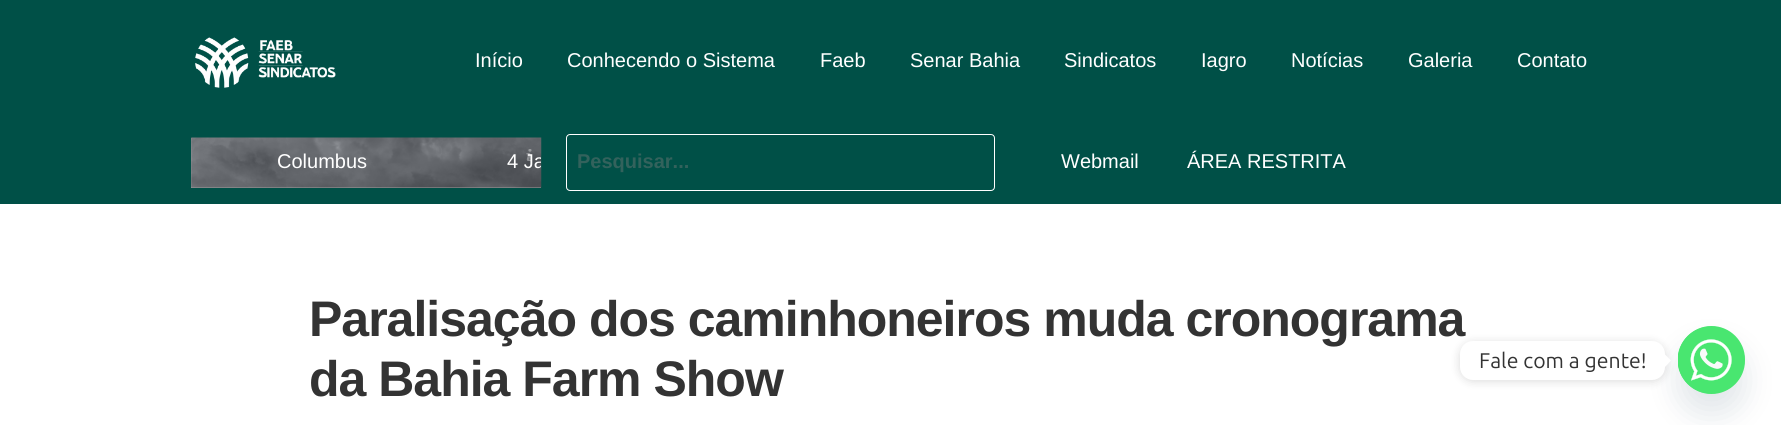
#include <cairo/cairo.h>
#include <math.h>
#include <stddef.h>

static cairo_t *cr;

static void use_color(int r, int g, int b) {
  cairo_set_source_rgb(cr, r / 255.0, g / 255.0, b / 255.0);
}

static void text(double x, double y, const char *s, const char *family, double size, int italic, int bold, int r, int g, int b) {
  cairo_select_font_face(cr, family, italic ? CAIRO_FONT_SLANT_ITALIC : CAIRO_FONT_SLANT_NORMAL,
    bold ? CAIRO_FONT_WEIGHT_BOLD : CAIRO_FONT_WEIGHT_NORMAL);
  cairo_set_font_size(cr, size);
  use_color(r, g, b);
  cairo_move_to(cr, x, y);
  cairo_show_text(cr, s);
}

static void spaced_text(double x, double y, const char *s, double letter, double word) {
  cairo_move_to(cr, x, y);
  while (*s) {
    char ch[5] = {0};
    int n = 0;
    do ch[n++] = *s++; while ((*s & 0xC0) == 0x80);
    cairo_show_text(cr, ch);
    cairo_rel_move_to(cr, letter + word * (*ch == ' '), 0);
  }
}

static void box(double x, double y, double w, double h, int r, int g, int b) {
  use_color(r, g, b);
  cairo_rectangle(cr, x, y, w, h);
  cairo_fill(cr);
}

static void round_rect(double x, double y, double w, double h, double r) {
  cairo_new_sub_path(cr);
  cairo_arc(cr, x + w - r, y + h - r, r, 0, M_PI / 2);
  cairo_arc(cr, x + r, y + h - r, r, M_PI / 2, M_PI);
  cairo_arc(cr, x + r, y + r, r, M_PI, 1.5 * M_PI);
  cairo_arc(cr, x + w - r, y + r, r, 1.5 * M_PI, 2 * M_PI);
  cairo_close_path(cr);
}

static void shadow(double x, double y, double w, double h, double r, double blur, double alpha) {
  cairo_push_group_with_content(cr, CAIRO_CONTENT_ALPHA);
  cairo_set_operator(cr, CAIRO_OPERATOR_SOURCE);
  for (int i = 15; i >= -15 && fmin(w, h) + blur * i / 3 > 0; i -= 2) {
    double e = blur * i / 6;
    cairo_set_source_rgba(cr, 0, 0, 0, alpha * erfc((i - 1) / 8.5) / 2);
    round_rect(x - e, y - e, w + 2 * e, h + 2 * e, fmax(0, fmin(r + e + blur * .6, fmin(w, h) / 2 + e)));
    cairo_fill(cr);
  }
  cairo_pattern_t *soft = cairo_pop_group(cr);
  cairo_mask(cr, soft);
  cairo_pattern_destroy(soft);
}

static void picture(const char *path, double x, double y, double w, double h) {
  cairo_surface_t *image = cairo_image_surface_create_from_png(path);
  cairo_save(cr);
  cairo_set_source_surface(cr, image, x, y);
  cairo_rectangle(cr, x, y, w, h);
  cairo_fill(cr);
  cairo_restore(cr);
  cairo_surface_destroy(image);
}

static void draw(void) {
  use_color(255, 255, 255);
  cairo_paint(cr);
  box(0, 0, 1781, 204, 0, 80, 71);
  picture("img_01.png", 195, 37, 141, 51);
  box(191, 138, 350, 50, 158, 158, 158);
  picture("img_02.png", 191, 137, 351, 51);
  round_rect(566.5, 134.5, 428, 56, 3.5);
  use_color(255, 255, 255);
  cairo_set_line_width(cr, 1);
  cairo_stroke(cr);
  use_color(73, 104, 126);
  shadow(1678, 346, 67, 68, 33.5, 15, 0.16);
  use_color(73, 230, 112);
  round_rect(1678, 326, 67, 68, 33.5);
  cairo_fill(cr);
  picture("img_04.png", 1678, 326, 67, 68);
  use_color(0, 0, 0);
  shadow(1460, 343, 205, 38, 13, 5, 0.15);
  use_color(255, 255, 255);
  cairo_new_path(cr);
  cairo_move_to(cr, 1665, 367);
  cairo_line_to(cr, 1665, 354.5);
  cairo_line_to(cr, 1671, 360.5);
  cairo_close_path(cr);
  cairo_fill(cr);
  text(475, 67, "Início", "Liberation Sans", 20, 0, 0, 255, 255, 255);
  text(567, 67, "Conhecendo o Sistema", "Liberation Sans", 20, 0, 0, 255, 255, 255);
  text(820, 67, "Faeb", "Liberation Sans", 20, 0, 0, 255, 255, 255);
  text(910, 67, "Senar Bahia", "Liberation Sans", 20, 0, 0, 255, 255, 255);
  text(1064, 67, "Sindicatos", "Liberation Sans", 20, 0, 0, 255, 255, 255);
  text(1201, 67, "Iagro", "Liberation Sans", 20, 0, 0, 255, 255, 255);
  text(1291, 67, "Notícias", "Liberation Sans", 20, 0, 0, 255, 255, 255);
  text(1408, 67, "Galeria", "Liberation Sans", 20, 0, 0, 255, 255, 255);
  text(1517, 67, "Contato", "Liberation Sans", 20, 0, 0, 255, 255, 255);
  text(277, 168, "Columbus", "Liberation Sans", 20, 0, 0, 255, 255, 255);
  cairo_save(cr);
  cairo_rectangle(cr, 191, 138, 350, 50);
  cairo_clip(cr);
  text(507, 168, "4 Ja", "Liberation Sans", 20, 0, 0, 255, 255, 255);
  cairo_restore(cr);
  picture("img_03.png", 526, 149, 6, 12);
  text(577, 168, "Pesquisar...", "Liberation Sans", 20, 0, 1, 51, 98, 92);
  text(1061, 168, "Webmail", "Liberation Sans", 20, 0, 0, 255, 255, 255);
  text(1187, 168, "ÁREA RESTRITA", "Liberation Sans", 20, 0, 0, 255, 255, 255);
  cairo_select_font_face(cr, "Liberation Sans", CAIRO_FONT_SLANT_NORMAL, CAIRO_FONT_WEIGHT_BOLD);
  cairo_set_font_size(cr, 50);
  use_color(51, 51, 51);
  spaced_text(309, 336, "Paralisação dos caminhoneiros muda cronograma", -1, 0);
  spaced_text(309, 396, "da Bahia Farm Show", -1, 0);
  use_color(255, 255, 255);
  round_rect(1460, 341, 205, 39, 13);
  cairo_fill(cr);
  text(1479, 368, "Fale com a gente!", "Ubuntu", 21.25, 0, 0, 51, 51, 51);
}

int main(void) {
  cairo_surface_t *surface = cairo_image_surface_create(CAIRO_FORMAT_RGB24, 1781, 425);
  cr = cairo_create(surface);
  cairo_font_options_t *options = cairo_font_options_create();
  cairo_font_options_set_hint_metrics(options, CAIRO_HINT_METRICS_OFF);
  cairo_font_options_set_hint_style(options, CAIRO_HINT_STYLE_NONE);
  cairo_set_font_options(cr, options);
  cairo_set_miter_limit(cr, 4);
  draw();
  cairo_surface_write_to_png(surface, "out.png");
  cairo_font_options_destroy(options);
  cairo_destroy(cr);
  cairo_surface_destroy(surface);
  return 0;
}
